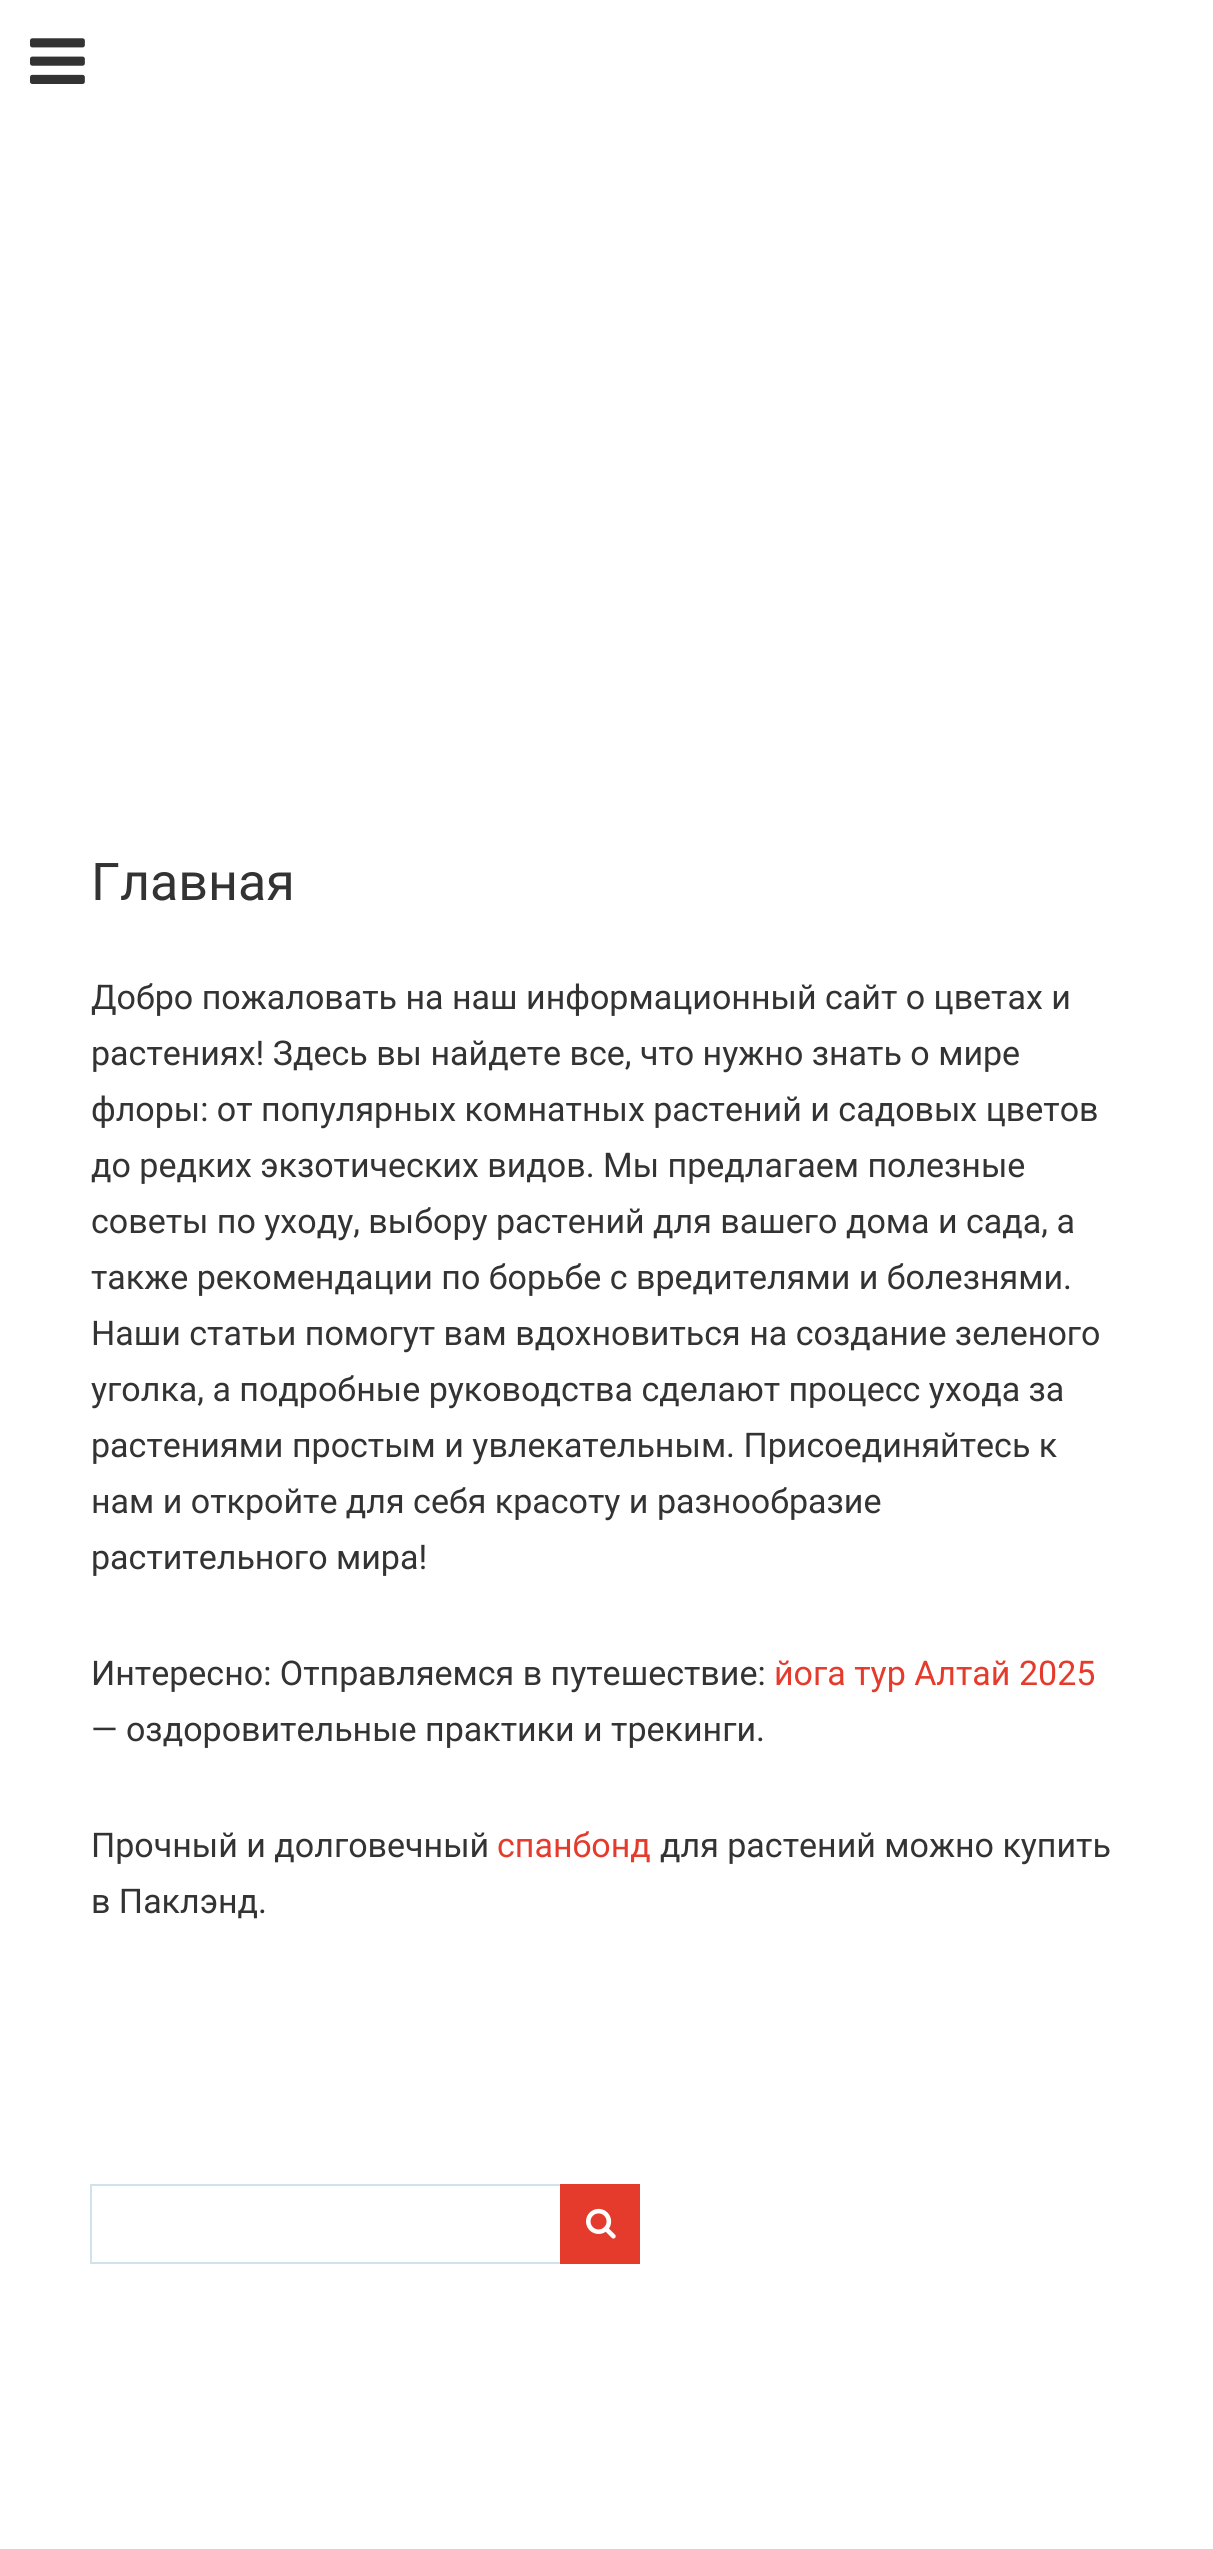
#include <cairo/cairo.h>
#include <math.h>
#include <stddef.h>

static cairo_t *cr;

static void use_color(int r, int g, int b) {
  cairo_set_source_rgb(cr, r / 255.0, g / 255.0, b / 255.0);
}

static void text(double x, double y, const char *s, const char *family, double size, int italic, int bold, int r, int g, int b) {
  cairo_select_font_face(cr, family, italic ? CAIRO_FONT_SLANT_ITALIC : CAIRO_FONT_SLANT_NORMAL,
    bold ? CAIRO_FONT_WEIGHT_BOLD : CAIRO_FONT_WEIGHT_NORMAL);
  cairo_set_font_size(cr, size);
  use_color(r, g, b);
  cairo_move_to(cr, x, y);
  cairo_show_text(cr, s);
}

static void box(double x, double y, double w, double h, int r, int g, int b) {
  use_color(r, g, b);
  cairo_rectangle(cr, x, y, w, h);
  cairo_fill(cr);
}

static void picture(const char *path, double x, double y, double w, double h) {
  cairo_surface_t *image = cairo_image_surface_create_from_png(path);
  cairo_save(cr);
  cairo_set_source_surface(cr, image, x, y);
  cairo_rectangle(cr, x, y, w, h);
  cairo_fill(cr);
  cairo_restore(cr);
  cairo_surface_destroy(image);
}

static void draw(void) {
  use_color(255, 255, 255);
  cairo_paint(cr);
  picture("img_01.png", 30, 38, 55, 46);
  box(90, 2184, 470, 2, 208, 226, 236);
  box(90, 2262, 470, 2, 208, 226, 236);
  box(90, 2184, 2, 80, 208, 226, 236);
  box(560, 2184, 80, 80, 229, 59, 44);
  picture("img_02.png", 586, 2208, 30, 31);
  text(91, 900, "Главная", "Roboto", 52, 0, 0, 51, 51, 51);
  text(91, 1009, "Добро пожаловать на наш информационный сайт о цветах и", "Roboto", 34, 0, 0, 51, 51, 51);
  text(91, 1065, "растениях! Здесь вы найдете все, что нужно знать о мире", "Roboto", 34, 0, 0, 51, 51, 51);
  text(91, 1121, "флоры: от популярных комнатных растений и садовых цветов", "Roboto", 34, 0, 0, 51, 51, 51);
  text(91, 1177, "до редких экзотических видов. Мы предлагаем полезные", "Roboto", 34, 0, 0, 51, 51, 51);
  text(91, 1233, "советы по уходу, выбору растений для вашего дома и сада, а", "Roboto", 34, 0, 0, 51, 51, 51);
  text(91, 1289, "также рекомендации по борьбе с вредителями и болезнями.", "Roboto", 34, 0, 0, 51, 51, 51);
  text(91, 1345, "Наши статьи помогут вам вдохновиться на создание зеленого", "Roboto", 34, 0, 0, 51, 51, 51);
  text(91, 1401, "уголка, а подробные руководства сделают процесс ухода за", "Roboto", 34, 0, 0, 51, 51, 51);
  text(91, 1457, "растениями простым и увлекательным. Присоединяйтесь к", "Roboto", 34, 0, 0, 51, 51, 51);
  text(91, 1513, "нам и откройте для себя красоту и разнообразие", "Roboto", 34, 0, 0, 51, 51, 51);
  text(91, 1569, "растительного мира!", "Roboto", 34, 0, 0, 51, 51, 51);
  text(91, 1685, "Интересно: Отправляемся в путешествие:", "Roboto", 34, 0, 0, 51, 51, 51);
  text(774, 1685, "йога тур Алтай 2025", "Roboto", 34, 0, 0, 229, 59, 44);
  text(91, 1741, "— оздоровительные практики и трекинги.", "Roboto", 34, 0, 0, 51, 51, 51);
  text(91, 1857, "Прочный и долговечный", "Roboto", 34, 0, 0, 51, 51, 51);
  text(497, 1857, "спанбонд", "Roboto", 34, 0, 0, 229, 59, 44);
  text(660, 1857, "для растений можно купить", "Roboto", 34, 0, 0, 51, 51, 51);
  text(91, 1913, "в Паклэнд.", "Roboto", 34, 0, 0, 51, 51, 51);
}

int main(void) {
  cairo_surface_t *surface = cairo_image_surface_create(CAIRO_FORMAT_RGB24, 1213, 2549);
  cr = cairo_create(surface);
  cairo_font_options_t *options = cairo_font_options_create();
  cairo_font_options_set_hint_metrics(options, CAIRO_HINT_METRICS_OFF);
  cairo_font_options_set_hint_style(options, CAIRO_HINT_STYLE_NONE);
  cairo_set_font_options(cr, options);
  cairo_set_miter_limit(cr, 4);
  draw();
  cairo_surface_write_to_png(surface, "out.png");
  cairo_font_options_destroy(options);
  cairo_destroy(cr);
  cairo_surface_destroy(surface);
  return 0;
}
